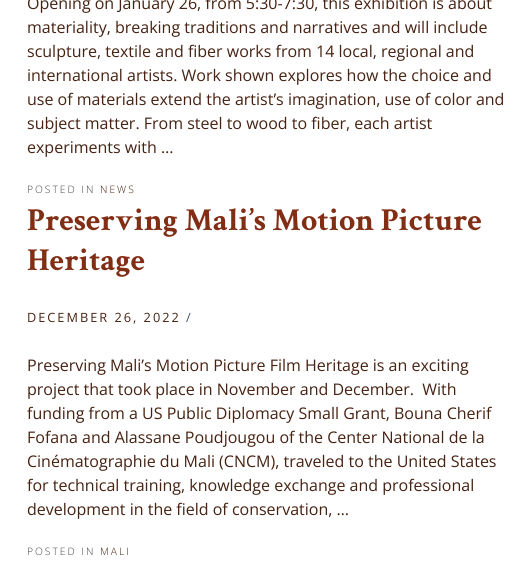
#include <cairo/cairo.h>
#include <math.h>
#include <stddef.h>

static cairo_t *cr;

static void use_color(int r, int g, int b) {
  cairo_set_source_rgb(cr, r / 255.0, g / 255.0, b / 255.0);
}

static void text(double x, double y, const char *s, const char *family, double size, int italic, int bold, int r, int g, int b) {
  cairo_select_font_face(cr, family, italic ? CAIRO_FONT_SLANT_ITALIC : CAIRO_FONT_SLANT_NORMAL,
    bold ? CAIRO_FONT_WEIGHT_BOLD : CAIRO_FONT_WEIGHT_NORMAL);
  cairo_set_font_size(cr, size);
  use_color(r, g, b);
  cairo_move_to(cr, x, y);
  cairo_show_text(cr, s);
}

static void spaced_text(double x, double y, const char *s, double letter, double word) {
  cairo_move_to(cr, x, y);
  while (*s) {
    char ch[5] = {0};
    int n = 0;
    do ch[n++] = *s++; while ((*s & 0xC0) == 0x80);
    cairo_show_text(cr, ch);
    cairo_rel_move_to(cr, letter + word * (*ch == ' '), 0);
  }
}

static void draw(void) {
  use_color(255, 255, 255);
  cairo_paint(cr);
  text(27, 9, "Opening on January 26, from 5:30-7:30, this exhibition is about", "Open Sans", 16, 0, 0, 70, 34, 18);
  text(27, 33, "materiality, breaking traditions and narratives and will include", "Open Sans", 16, 0, 0, 70, 34, 18);
  text(27, 57, "sculpture, textile and fiber works from 14 local, regional and", "Open Sans", 16, 0, 0, 70, 34, 18);
  text(27, 81, "international artists. Work shown explores how the choice and", "Open Sans", 16, 0, 0, 70, 34, 18);
  text(27, 105, "use of materials extend the artist’s imagination, use of color and", "Open Sans", 16, 0, 0, 70, 34, 18);
  text(27, 129, "subject matter. From steel to wood to fiber, each artist", "Open Sans", 16, 0, 0, 70, 34, 18);
  text(27, 153, "experiments with …", "Open Sans", 16, 0, 0, 70, 34, 18);
  cairo_select_font_face(cr, "Open Sans Light", CAIRO_FONT_SLANT_NORMAL, CAIRO_FONT_WEIGHT_NORMAL);
  cairo_set_font_size(cr, 10.25);
  use_color(68, 68, 68);
  spaced_text(27, 193, "POSTED IN", 2, 0);
  use_color(70, 34, 18);
  spaced_text(100, 193, "NEWS", 2, 0);
  text(27, 230, "Preserving Mali’s Motion Picture", "Crimson Text", 32, 0, 1, 129, 46, 21);
  text(27, 270, "Heritage", "Crimson Text", 32, 0, 1, 129, 46, 21);
  cairo_select_font_face(cr, "Open Sans", CAIRO_FONT_SLANT_NORMAL, CAIRO_FONT_WEIGHT_NORMAL);
  cairo_set_font_size(cr, 12.75);
  use_color(70, 34, 18);
  spaced_text(27, 322, "DECEMBER 26, 2022", 2, 0);
  use_color(61, 86, 110);
  spaced_text(186, 322, "/", 2, 0);
  text(27, 371, "Preserving Mali’s Motion Picture Film Heritage is an exciting", "Open Sans", 16, 0, 0, 70, 34, 18);
  text(27, 395, "project that took place in November and December.  With", "Open Sans", 16, 0, 0, 70, 34, 18);
  text(27, 419, "funding from a US Public Diplomacy Small Grant, Bouna Cherif", "Open Sans", 16, 0, 0, 70, 34, 18);
  text(27, 443, "Fofana and Alassane Poudjougou of the Center National de la", "Open Sans", 16, 0, 0, 70, 34, 18);
  text(27, 467, "Cinématographie du Mali (CNCM), traveled to the United States", "Open Sans", 16, 0, 0, 70, 34, 18);
  text(27, 491, "for technical training, knowledge exchange and professional", "Open Sans", 16, 0, 0, 70, 34, 18);
  text(27, 515, "development in the field of conservation, …", "Open Sans", 16, 0, 0, 70, 34, 18);
  cairo_select_font_face(cr, "Open Sans Light", CAIRO_FONT_SLANT_NORMAL, CAIRO_FONT_WEIGHT_NORMAL);
  cairo_set_font_size(cr, 10.25);
  use_color(68, 68, 68);
  spaced_text(27, 555, "POSTED IN", 2, 0);
  use_color(70, 34, 18);
  spaced_text(100, 555, "MALI", 2, 0);
}

int main(void) {
  cairo_surface_t *surface = cairo_image_surface_create(CAIRO_FORMAT_RGB24, 532, 582);
  cr = cairo_create(surface);
  cairo_font_options_t *options = cairo_font_options_create();
  cairo_font_options_set_hint_metrics(options, CAIRO_HINT_METRICS_OFF);
  cairo_font_options_set_hint_style(options, CAIRO_HINT_STYLE_NONE);
  cairo_set_font_options(cr, options);
  cairo_set_miter_limit(cr, 4);
  draw();
  cairo_surface_write_to_png(surface, "out.png");
  cairo_font_options_destroy(options);
  cairo_destroy(cr);
  cairo_surface_destroy(surface);
  return 0;
}
